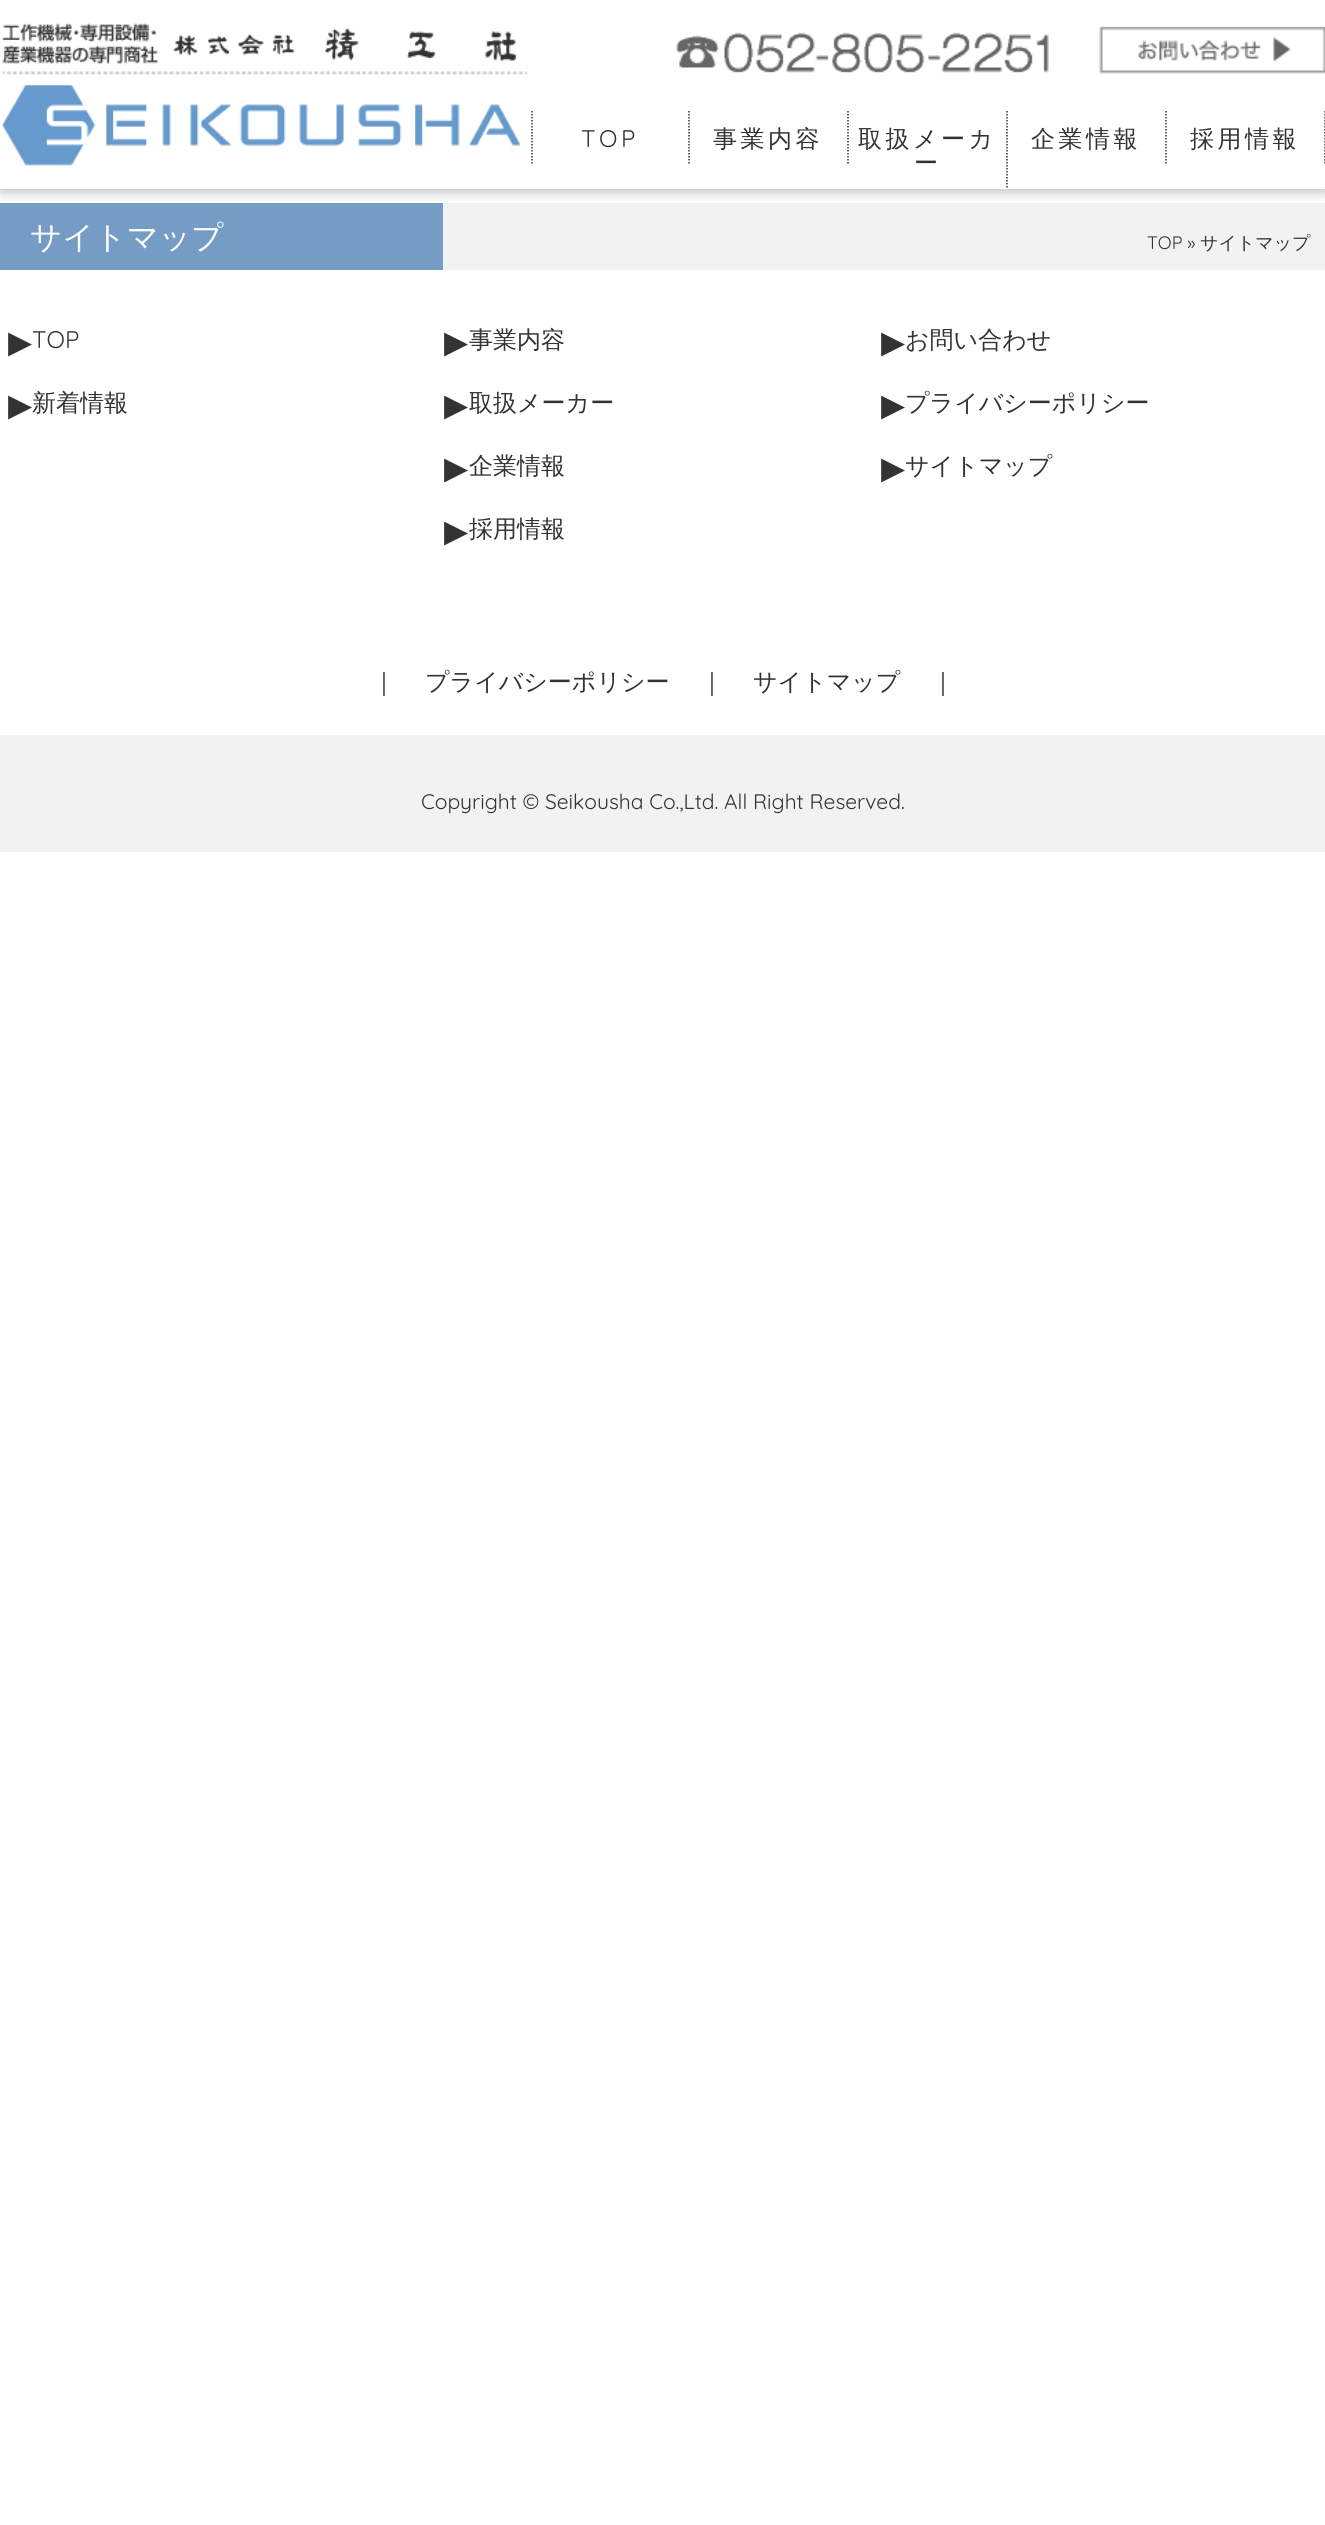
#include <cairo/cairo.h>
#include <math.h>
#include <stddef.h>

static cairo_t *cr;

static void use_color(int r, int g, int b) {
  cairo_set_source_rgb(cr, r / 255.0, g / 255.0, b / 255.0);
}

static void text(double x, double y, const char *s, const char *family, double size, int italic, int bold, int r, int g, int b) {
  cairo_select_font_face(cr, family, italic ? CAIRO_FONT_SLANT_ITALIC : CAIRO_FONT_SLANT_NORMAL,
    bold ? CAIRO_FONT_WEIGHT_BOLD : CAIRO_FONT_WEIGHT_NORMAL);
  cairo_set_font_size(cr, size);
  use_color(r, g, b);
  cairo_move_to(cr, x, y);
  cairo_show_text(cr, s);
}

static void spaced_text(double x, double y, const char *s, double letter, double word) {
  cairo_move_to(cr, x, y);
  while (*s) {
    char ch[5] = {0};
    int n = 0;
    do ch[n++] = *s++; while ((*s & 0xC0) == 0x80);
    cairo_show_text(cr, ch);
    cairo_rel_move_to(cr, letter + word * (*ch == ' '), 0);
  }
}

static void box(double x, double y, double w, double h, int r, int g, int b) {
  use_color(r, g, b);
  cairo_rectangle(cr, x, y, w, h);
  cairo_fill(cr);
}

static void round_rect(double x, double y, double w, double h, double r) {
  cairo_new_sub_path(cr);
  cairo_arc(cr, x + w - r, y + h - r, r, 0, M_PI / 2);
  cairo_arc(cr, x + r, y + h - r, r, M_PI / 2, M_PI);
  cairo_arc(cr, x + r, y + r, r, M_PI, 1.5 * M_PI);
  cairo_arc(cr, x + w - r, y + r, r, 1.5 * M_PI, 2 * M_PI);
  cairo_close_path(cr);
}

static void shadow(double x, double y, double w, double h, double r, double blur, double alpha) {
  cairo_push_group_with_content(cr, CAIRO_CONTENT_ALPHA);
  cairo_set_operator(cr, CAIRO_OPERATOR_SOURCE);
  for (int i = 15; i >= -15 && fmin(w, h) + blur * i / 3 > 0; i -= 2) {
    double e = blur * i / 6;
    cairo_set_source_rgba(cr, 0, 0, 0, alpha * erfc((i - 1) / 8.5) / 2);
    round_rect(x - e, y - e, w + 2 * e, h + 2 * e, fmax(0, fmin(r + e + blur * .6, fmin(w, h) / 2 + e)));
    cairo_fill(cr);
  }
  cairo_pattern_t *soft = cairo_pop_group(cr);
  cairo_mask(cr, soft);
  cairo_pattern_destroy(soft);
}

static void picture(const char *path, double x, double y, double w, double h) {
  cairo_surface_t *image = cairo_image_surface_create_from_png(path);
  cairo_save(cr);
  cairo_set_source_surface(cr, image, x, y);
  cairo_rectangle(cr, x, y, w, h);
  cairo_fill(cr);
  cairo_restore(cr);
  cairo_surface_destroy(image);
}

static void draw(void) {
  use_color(255, 255, 255);
  cairo_paint(cr);
  box(443, 203, 882, 67, 242, 242, 242);
  box(0, 203, 443, 67, 117, 156, 196);
  cairo_save(cr);
  cairo_rectangle(cr, 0, 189, 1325, 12);
  cairo_clip(cr);
  use_color(30, 30, 80);
  shadow(0, 3, 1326, 189, 0, 6, 0.3);
  cairo_restore(cr);
  picture("img_01.png", 2, 23, 525, 143);
  picture("img_02.png", 676, 32, 373, 41);
  picture("img_03.png", 1099, 26, 226, 48);
  cairo_new_path(cr);
  cairo_move_to(cr, 689, 111);
  cairo_line_to(cr, 689, 165);
  use_color(51, 51, 51);
  cairo_set_line_width(cr, 1.5);
  cairo_set_dash(cr, (double[]){1.5, 1.5}, 2, 0);
  cairo_stroke(cr);
  cairo_new_path(cr);
  cairo_move_to(cr, 532, 111);
  cairo_line_to(cr, 532, 165);
  cairo_stroke(cr);
  cairo_new_path(cr);
  cairo_move_to(cr, 848, 111);
  cairo_line_to(cr, 848, 165);
  cairo_stroke(cr);
  cairo_new_path(cr);
  cairo_move_to(cr, 1007, 111);
  cairo_line_to(cr, 1007, 189);
  cairo_stroke(cr);
  cairo_new_path(cr);
  cairo_move_to(cr, 1166, 111);
  cairo_line_to(cr, 1166, 165);
  cairo_stroke(cr);
  cairo_new_path(cr);
  cairo_move_to(cr, 1325, 111);
  cairo_line_to(cr, 1325, 165);
  cairo_stroke(cr);
  box(0, 735, 1325, 117, 242, 242, 242);
  cairo_select_font_face(cr, "Quicksand", CAIRO_FONT_SLANT_NORMAL, CAIRO_FONT_WEIGHT_NORMAL);
  cairo_set_font_size(cr, 24);
  use_color(51, 51, 51);
  spaced_text(581, 147, "TOP", 3.5, 0);
  cairo_select_font_face(cr, "WenQuanYi Zen Hei Medium", CAIRO_FONT_SLANT_NORMAL, CAIRO_FONT_WEIGHT_NORMAL);
  spaced_text(713, 147, "事業内容", 3.5, 0);
  spaced_text(858, 147, "取扱メーカ", 3.5, 0);
  spaced_text(914, 171, "ー", 3.5, 0);
  spaced_text(1031, 147, "企業情報", 3.5, 0);
  spaced_text(1190, 147, "採用情報", 3.5, 0);
  text(30, 248, "サイトマップ", "WenQuanYi Zen Hei Medium", 31.5, 0, 0, 255, 255, 255);
  text(1147, 249, "TOP »", "Quicksand", 18, 0, 0, 51, 51, 51);
  text(1200, 249, "サイトマップ", "WenQuanYi Zen Hei Medium", 18, 0, 0, 51, 51, 51);
  text(8, 357, "▸", "DejaVu Sans", 48, 0, 0, 51, 51, 51);
  text(32, 348, "TOP", "Quicksand", 24, 0, 0, 51, 51, 51);
  text(8, 420, "▸", "DejaVu Sans", 48, 0, 0, 51, 51, 51);
  text(32, 411, "新着情報", "WenQuanYi Zen Hei Medium", 24, 0, 0, 51, 51, 51);
  text(444, 357, "▸", "DejaVu Sans", 48, 0, 0, 51, 51, 51);
  text(469, 348, "事業内容", "WenQuanYi Zen Hei Medium", 24, 0, 0, 51, 51, 51);
  text(444, 420, "▸", "DejaVu Sans", 48, 0, 0, 51, 51, 51);
  text(469, 411, "取扱メーカー", "WenQuanYi Zen Hei Medium", 24, 0, 0, 51, 51, 51);
  text(444, 483, "▸", "DejaVu Sans", 48, 0, 0, 51, 51, 51);
  text(469, 474, "企業情報", "WenQuanYi Zen Hei Medium", 24, 0, 0, 51, 51, 51);
  text(444, 546, "▸", "DejaVu Sans", 48, 0, 0, 51, 51, 51);
  text(469, 537, "採用情報", "WenQuanYi Zen Hei Medium", 24, 0, 0, 51, 51, 51);
  text(881, 357, "▸", "DejaVu Sans", 48, 0, 0, 51, 51, 51);
  text(905, 348, "お問い合わせ", "WenQuanYi Zen Hei Medium", 24, 0, 0, 51, 51, 51);
  text(881, 420, "▸", "DejaVu Sans", 48, 0, 0, 51, 51, 51);
  text(905, 411, "プライバシーポリシー", "WenQuanYi Zen Hei Medium", 24, 0, 0, 51, 51, 51);
  text(881, 483, "▸", "DejaVu Sans", 48, 0, 0, 51, 51, 51);
  text(905, 474, "サイトマップ", "WenQuanYi Zen Hei Medium", 24, 0, 0, 51, 51, 51);
  text(372, 690, "｜", "WenQuanYi Zen Hei Medium", 24, 0, 0, 51, 51, 51);
  text(425, 690, "プライバシーポリシー", "WenQuanYi Zen Hei Medium", 24, 0, 0, 51, 51, 51);
  text(700, 690, "｜", "WenQuanYi Zen Hei Medium", 24, 0, 0, 51, 51, 51);
  text(753, 690, "サイトマップ", "WenQuanYi Zen Hei Medium", 24, 0, 0, 51, 51, 51);
  text(931, 690, "｜", "WenQuanYi Zen Hei Medium", 24, 0, 0, 51, 51, 51);
  text(421, 809, "Copyright © Seikousha Co.,Ltd. All Right Reserved.", "Quicksand", 21, 0, 0, 51, 51, 51);
}

int main(void) {
  cairo_surface_t *surface = cairo_image_surface_create(CAIRO_FORMAT_RGB24, 1325, 2525);
  cr = cairo_create(surface);
  cairo_font_options_t *options = cairo_font_options_create();
  cairo_font_options_set_hint_metrics(options, CAIRO_HINT_METRICS_OFF);
  cairo_font_options_set_hint_style(options, CAIRO_HINT_STYLE_NONE);
  cairo_set_font_options(cr, options);
  cairo_set_miter_limit(cr, 4);
  draw();
  cairo_surface_write_to_png(surface, "out.png");
  cairo_font_options_destroy(options);
  cairo_destroy(cr);
  cairo_surface_destroy(surface);
  return 0;
}
